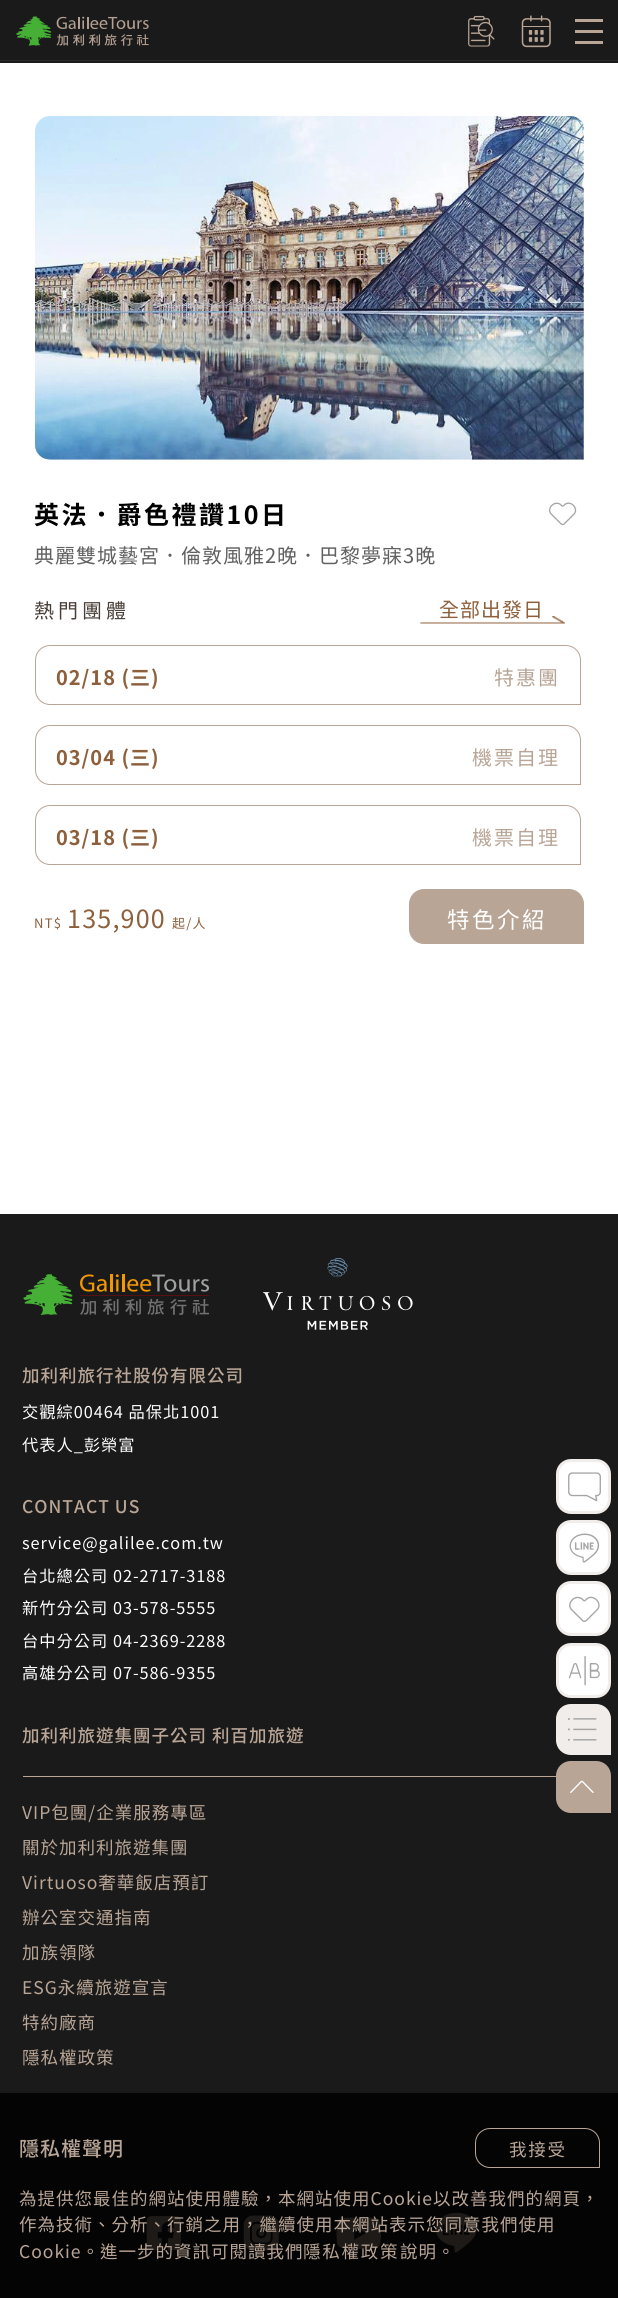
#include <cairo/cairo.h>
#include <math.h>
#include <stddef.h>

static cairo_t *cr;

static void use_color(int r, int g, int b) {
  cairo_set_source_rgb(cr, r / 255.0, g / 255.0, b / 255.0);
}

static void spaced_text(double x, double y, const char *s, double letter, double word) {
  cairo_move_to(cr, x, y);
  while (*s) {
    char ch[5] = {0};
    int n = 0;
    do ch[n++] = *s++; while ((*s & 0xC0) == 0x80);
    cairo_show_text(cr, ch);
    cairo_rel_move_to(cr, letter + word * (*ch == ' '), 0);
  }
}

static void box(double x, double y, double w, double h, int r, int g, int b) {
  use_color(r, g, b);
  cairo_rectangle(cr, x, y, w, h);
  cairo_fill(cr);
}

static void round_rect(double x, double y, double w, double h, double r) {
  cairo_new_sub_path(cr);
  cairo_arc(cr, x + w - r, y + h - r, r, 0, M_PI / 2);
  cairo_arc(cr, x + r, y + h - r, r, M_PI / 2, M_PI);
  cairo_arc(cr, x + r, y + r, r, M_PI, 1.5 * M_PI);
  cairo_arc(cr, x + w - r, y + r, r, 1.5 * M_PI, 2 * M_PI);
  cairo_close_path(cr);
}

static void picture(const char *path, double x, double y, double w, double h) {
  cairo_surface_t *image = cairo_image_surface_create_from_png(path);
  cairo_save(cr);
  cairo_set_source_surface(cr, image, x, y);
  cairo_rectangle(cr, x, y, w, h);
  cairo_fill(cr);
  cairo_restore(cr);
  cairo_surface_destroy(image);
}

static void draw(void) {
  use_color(255, 255, 255);
  cairo_paint(cr);
  box(0, 0, 618, 63, 26, 26, 26);
  picture("img_01.png", 16, 16, 133, 30);
  picture("img_02.png", 468, 15, 27, 32);
  picture("img_03.png", 521, 15, 30, 33);
  box(575, 19, 28, 3, 184, 165, 150);
  box(575, 30, 28, 3, 184, 165, 150);
  box(575, 41, 28, 3, 184, 165, 150);
  box(0, 60, 618, 1, 41, 41, 41);
  picture("img_04.png", 35, 116, 549, 344);
  picture("img_05.png", 549, 502, 28, 24);
  cairo_new_path(cr);
  cairo_move_to(cr, 50, 645.5);
  cairo_line_to(cr, 566, 645.5);
  cairo_curve_to(cr, 574, 645.5, 580.5, 652, 580.5, 660);
  cairo_line_to(cr, 580.5, 704.5);
  cairo_line_to(cr, 50, 704.5);
  cairo_curve_to(cr, 42, 704.5, 35.5, 698, 35.5, 690);
  cairo_line_to(cr, 35.5, 660);
  cairo_curve_to(cr, 35.5, 652, 42, 645.5, 50, 645.5);
  cairo_close_path(cr);
  use_color(184, 165, 150);
  cairo_set_line_width(cr, 1);
  cairo_stroke(cr);
  cairo_new_path(cr);
  cairo_move_to(cr, 50, 725.5);
  cairo_line_to(cr, 566, 725.5);
  cairo_curve_to(cr, 574, 725.5, 580.5, 732, 580.5, 740);
  cairo_line_to(cr, 580.5, 784.5);
  cairo_line_to(cr, 50, 784.5);
  cairo_curve_to(cr, 42, 784.5, 35.5, 778, 35.5, 770);
  cairo_line_to(cr, 35.5, 740);
  cairo_curve_to(cr, 35.5, 732, 42, 725.5, 50, 725.5);
  cairo_close_path(cr);
  cairo_stroke(cr);
  cairo_new_path(cr);
  cairo_move_to(cr, 50, 805.5);
  cairo_line_to(cr, 566, 805.5);
  cairo_curve_to(cr, 574, 805.5, 580.5, 812, 580.5, 820);
  cairo_line_to(cr, 580.5, 864.5);
  cairo_line_to(cr, 50, 864.5);
  cairo_curve_to(cr, 42, 864.5, 35.5, 858, 35.5, 850);
  cairo_line_to(cr, 35.5, 820);
  cairo_curve_to(cr, 35.5, 812, 42, 805.5, 50, 805.5);
  cairo_close_path(cr);
  cairo_stroke(cr);
  cairo_new_path(cr);
  cairo_move_to(cr, 424, 889.5);
  cairo_line_to(cr, 569, 889.5);
  cairo_curve_to(cr, 577, 889.5, 583.5, 896, 583.5, 904);
  cairo_line_to(cr, 583.5, 943.5);
  cairo_line_to(cr, 424, 943.5);
  cairo_curve_to(cr, 416, 943.5, 409.5, 937, 409.5, 929);
  cairo_line_to(cr, 409.5, 904);
  cairo_curve_to(cr, 409.5, 896, 416, 889.5, 424, 889.5);
  cairo_close_path(cr);
  cairo_fill_preserve(cr);
  cairo_stroke(cr);
  box(0, 1214, 618, 1084, 26, 26, 26);
  picture("img_07.png", 23, 1274, 186, 41);
  picture("img_08.png", 263, 1258, 150, 72);
  box(23, 1776, 533, 1, 184, 165, 150);
  picture("img_09.png", 146, 2216, 35, 35);
  picture("img_10.png", 243, 2215, 36, 36);
  picture("img_11.png", 336, 2217, 45, 32);
  picture("img_12.png", 435, 2212, 42, 41);
  use_color(255, 255, 255);
  round_rect(557.5, 1460.5, 52, 52, 13.5);
  cairo_fill_preserve(cr);
  use_color(241, 237, 234);
  cairo_set_line_width(cr, 3);
  cairo_stroke(cr);
  picture("img_13.png", 568, 1472, 33, 30);
  use_color(255, 255, 255);
  round_rect(557.5, 1521.5, 52, 52, 13.5);
  cairo_fill_preserve(cr);
  use_color(241, 237, 234);
  cairo_stroke(cr);
  picture("img_14.png", 569, 1533, 31, 30);
  use_color(255, 255, 255);
  round_rect(557.5, 1582.5, 52, 52, 13.5);
  cairo_fill_preserve(cr);
  use_color(241, 237, 234);
  cairo_stroke(cr);
  picture("img_15.png", 569, 1596, 31, 26);
  use_color(255, 255, 255);
  round_rect(557.5, 1644.5, 52, 52, 13.5);
  cairo_fill_preserve(cr);
  use_color(241, 237, 234);
  cairo_stroke(cr);
  picture("img_16.png", 568, 1656, 32, 30);
  cairo_new_path(cr);
  cairo_move_to(cr, 571, 1704);
  cairo_line_to(cr, 596, 1704);
  cairo_curve_to(cr, 604.5, 1704, 611, 1710.5, 611, 1719);
  cairo_line_to(cr, 611, 1755);
  cairo_line_to(cr, 571, 1755);
  cairo_curve_to(cr, 562.5, 1755, 556, 1748.5, 556, 1740);
  cairo_line_to(cr, 556, 1719);
  cairo_curve_to(cr, 556, 1710.5, 562.5, 1704, 571, 1704);
  cairo_close_path(cr);
  cairo_fill(cr);
  picture("img_17.png", 568, 1718, 29, 23);
  use_color(184, 165, 150);
  cairo_new_path(cr);
  cairo_move_to(cr, 571, 1761);
  cairo_line_to(cr, 596, 1761);
  cairo_curve_to(cr, 604.5, 1761, 611, 1767.5, 611, 1776);
  cairo_line_to(cr, 611, 1813);
  cairo_line_to(cr, 571, 1813);
  cairo_curve_to(cr, 562.5, 1813, 556, 1806.5, 556, 1798);
  cairo_line_to(cr, 556, 1776);
  cairo_curve_to(cr, 556, 1767.5, 562.5, 1761, 571, 1761);
  cairo_close_path(cr);
  cairo_fill(cr);
  picture("img_18.png", 570, 1780, 24, 13);
  cairo_set_source_rgba(cr, 0, 0, 0, 0.84);
  cairo_rectangle(cr, 0, 2093, 618, 205);
  cairo_fill(cr);
  cairo_new_path(cr);
  cairo_move_to(cr, 490, 2128.5);
  cairo_line_to(cr, 585, 2128.5);
  cairo_curve_to(cr, 593, 2128.5, 599.5, 2135, 599.5, 2143);
  cairo_line_to(cr, 599.5, 2167.5);
  cairo_line_to(cr, 490, 2167.5);
  cairo_curve_to(cr, 482, 2167.5, 475.5, 2161, 475.5, 2153);
  cairo_line_to(cr, 475.5, 2143);
  cairo_curve_to(cr, 475.5, 2135, 482, 2128.5, 490, 2128.5);
  cairo_close_path(cr);
  use_color(184, 165, 150);
  cairo_set_line_width(cr, 1);
  cairo_stroke(cr);
  cairo_select_font_face(cr, "Noto Sans TC", CAIRO_FONT_SLANT_NORMAL, CAIRO_FONT_WEIGHT_BOLD);
  cairo_set_font_size(cr, 25);
  use_color(0, 0, 0);
  spaced_text(34, 524, "英法．爵色禮讚10日", 2.5, 0);
  cairo_select_font_face(cr, "Noto Sans TC", CAIRO_FONT_SLANT_NORMAL, CAIRO_FONT_WEIGHT_NORMAL);
  cairo_set_font_size(cr, 20);
  use_color(98, 97, 97);
  spaced_text(34, 563, "典麗雙城藝宮．倫敦風雅2晚．巴黎夢寐3晚", 1, 0);
  use_color(72, 63, 56);
  spaced_text(34, 618, "熱門團體", 4, 0);
  use_color(141, 95, 59);
  spaced_text(439, 617, "全部出發日", 1, 0);
  picture("img_06.png", 420, 616, 145, 8);
  cairo_select_font_face(cr, "Noto Sans TC", CAIRO_FONT_SLANT_NORMAL, CAIRO_FONT_WEIGHT_BOLD);
  spaced_text(56, 685, "02/18 (三)", 1, 0);
  cairo_select_font_face(cr, "Noto Sans TC", CAIRO_FONT_SLANT_NORMAL, CAIRO_FONT_WEIGHT_NORMAL);
  use_color(184, 165, 150);
  spaced_text(494, 685, "特惠團", 2, 0);
  cairo_select_font_face(cr, "Noto Sans TC", CAIRO_FONT_SLANT_NORMAL, CAIRO_FONT_WEIGHT_BOLD);
  use_color(141, 95, 59);
  spaced_text(56, 765, "03/04 (三)", 1, 0);
  cairo_select_font_face(cr, "Noto Sans TC", CAIRO_FONT_SLANT_NORMAL, CAIRO_FONT_WEIGHT_NORMAL);
  use_color(184, 165, 150);
  spaced_text(472, 765, "機票自理", 2, 0);
  cairo_select_font_face(cr, "Noto Sans TC", CAIRO_FONT_SLANT_NORMAL, CAIRO_FONT_WEIGHT_BOLD);
  use_color(141, 95, 59);
  spaced_text(56, 845, "03/18 (三)", 1, 0);
  cairo_select_font_face(cr, "Noto Sans TC", CAIRO_FONT_SLANT_NORMAL, CAIRO_FONT_WEIGHT_NORMAL);
  use_color(184, 165, 150);
  spaced_text(472, 845, "機票自理", 2, 0);
  cairo_set_font_size(cr, 13);
  use_color(141, 95, 59);
  spaced_text(34, 928, "NT$", 1.25, 0);
  cairo_set_font_size(cr, 25);
  spaced_text(67, 928, "135,900", 1.25, 0);
  cairo_set_font_size(cr, 13);
  spaced_text(172, 928, "起/人", 1.25, 0);
  cairo_set_font_size(cr, 22.5);
  use_color(255, 255, 255);
  spaced_text(447, 928, "特色介紹", 2.5, 0);
  cairo_select_font_face(cr, "Noto Sans TC Medium", CAIRO_FONT_SLANT_NORMAL, CAIRO_FONT_WEIGHT_NORMAL);
  cairo_set_font_size(cr, 17.5);
  use_color(184, 165, 150);
  spaced_text(22, 1382, "加利利旅行社股份有限公司", 1, 0);
  cairo_select_font_face(cr, "Noto Sans TC", CAIRO_FONT_SLANT_NORMAL, CAIRO_FONT_WEIGHT_NORMAL);
  cairo_set_font_size(cr, 16.25);
  use_color(255, 255, 255);
  spaced_text(22, 1418, "交觀綜00464 品保北1001", 1, 0);
  spaced_text(22, 1451, "代表人_彭榮富", 1, 0);
  cairo_select_font_face(cr, "Noto Sans TC Medium", CAIRO_FONT_SLANT_NORMAL, CAIRO_FONT_WEIGHT_NORMAL);
  cairo_set_font_size(cr, 17.5);
  use_color(184, 165, 150);
  spaced_text(22, 1513, "CONTACT US", 1, 0);
  cairo_select_font_face(cr, "Noto Sans TC", CAIRO_FONT_SLANT_NORMAL, CAIRO_FONT_WEIGHT_NORMAL);
  cairo_set_font_size(cr, 16.25);
  use_color(255, 255, 255);
  spaced_text(22, 1549, "service@galilee.com.tw", 1, 0);
  spaced_text(22, 1582, "台北總公司 02-2717-3188", 1, 0);
  spaced_text(22, 1614, "新竹分公司 03-578-5555", 1, 0);
  spaced_text(22, 1647, "台中分公司 04-2369-2288", 1, 0);
  spaced_text(22, 1679, "高雄分公司 07-586-9355", 1, 0);
  cairo_select_font_face(cr, "Noto Sans TC Medium", CAIRO_FONT_SLANT_NORMAL, CAIRO_FONT_WEIGHT_NORMAL);
  cairo_set_font_size(cr, 17.5);
  use_color(184, 165, 150);
  spaced_text(22, 1742, "加利利旅遊集團子公司 利百加旅遊", 1, 0);
  cairo_select_font_face(cr, "Noto Sans TC", CAIRO_FONT_SLANT_NORMAL, CAIRO_FONT_WEIGHT_NORMAL);
  spaced_text(22, 1819, "VIP包團/企業服務專區", 1, 0);
  spaced_text(22, 1854, "關於加利利旅遊集團", 1, 0);
  spaced_text(22, 1889, "Virtuoso奢華飯店預訂", 1, 0);
  spaced_text(22, 1924, "辦公室交通指南", 1, 0);
  spaced_text(22, 1959, "加族領隊", 1, 0);
  spaced_text(22, 1994, "ESG永續旅遊宣言", 1, 0);
  spaced_text(22, 2029, "特約廠商", 1, 0);
  spaced_text(22, 2064, "隱私權政策", 1, 0);
  cairo_select_font_face(cr, "Noto Sans TC Medium", CAIRO_FONT_SLANT_NORMAL, CAIRO_FONT_WEIGHT_NORMAL);
  cairo_set_font_size(cr, 20);
  spaced_text(19, 2156, "隱私權聲明", 1, 0);
  cairo_select_font_face(cr, "Noto Sans TC", CAIRO_FONT_SLANT_NORMAL, CAIRO_FONT_WEIGHT_NORMAL);
  cairo_set_font_size(cr, 17.5);
  spaced_text(509, 2156, "我接受", 1.75, 0);
  spaced_text(19, 2205, "為提供您最佳的網站使用體驗，本網站使用Cookie以改善我們的網頁，", 1, 0);
  spaced_text(19, 2231, "作為技術、分析、行銷之用，繼續使用本網站表示您同意我們使用", 1, 0);
  spaced_text(19, 2258, "Cookie。進一步的資訊可閱讀我們", 1, 0);
  spaced_text(303, 2258, "隱私權政策", 1.75, 0);
  spaced_text(400, 2258, "說明。", 1, 0);
}

int main(void) {
  cairo_surface_t *surface = cairo_image_surface_create(CAIRO_FORMAT_RGB24, 618, 2298);
  cr = cairo_create(surface);
  cairo_font_options_t *options = cairo_font_options_create();
  cairo_font_options_set_hint_metrics(options, CAIRO_HINT_METRICS_OFF);
  cairo_font_options_set_hint_style(options, CAIRO_HINT_STYLE_NONE);
  cairo_set_font_options(cr, options);
  cairo_set_miter_limit(cr, 4);
  draw();
  cairo_surface_write_to_png(surface, "out.png");
  cairo_font_options_destroy(options);
  cairo_destroy(cr);
  cairo_surface_destroy(surface);
  return 0;
}
